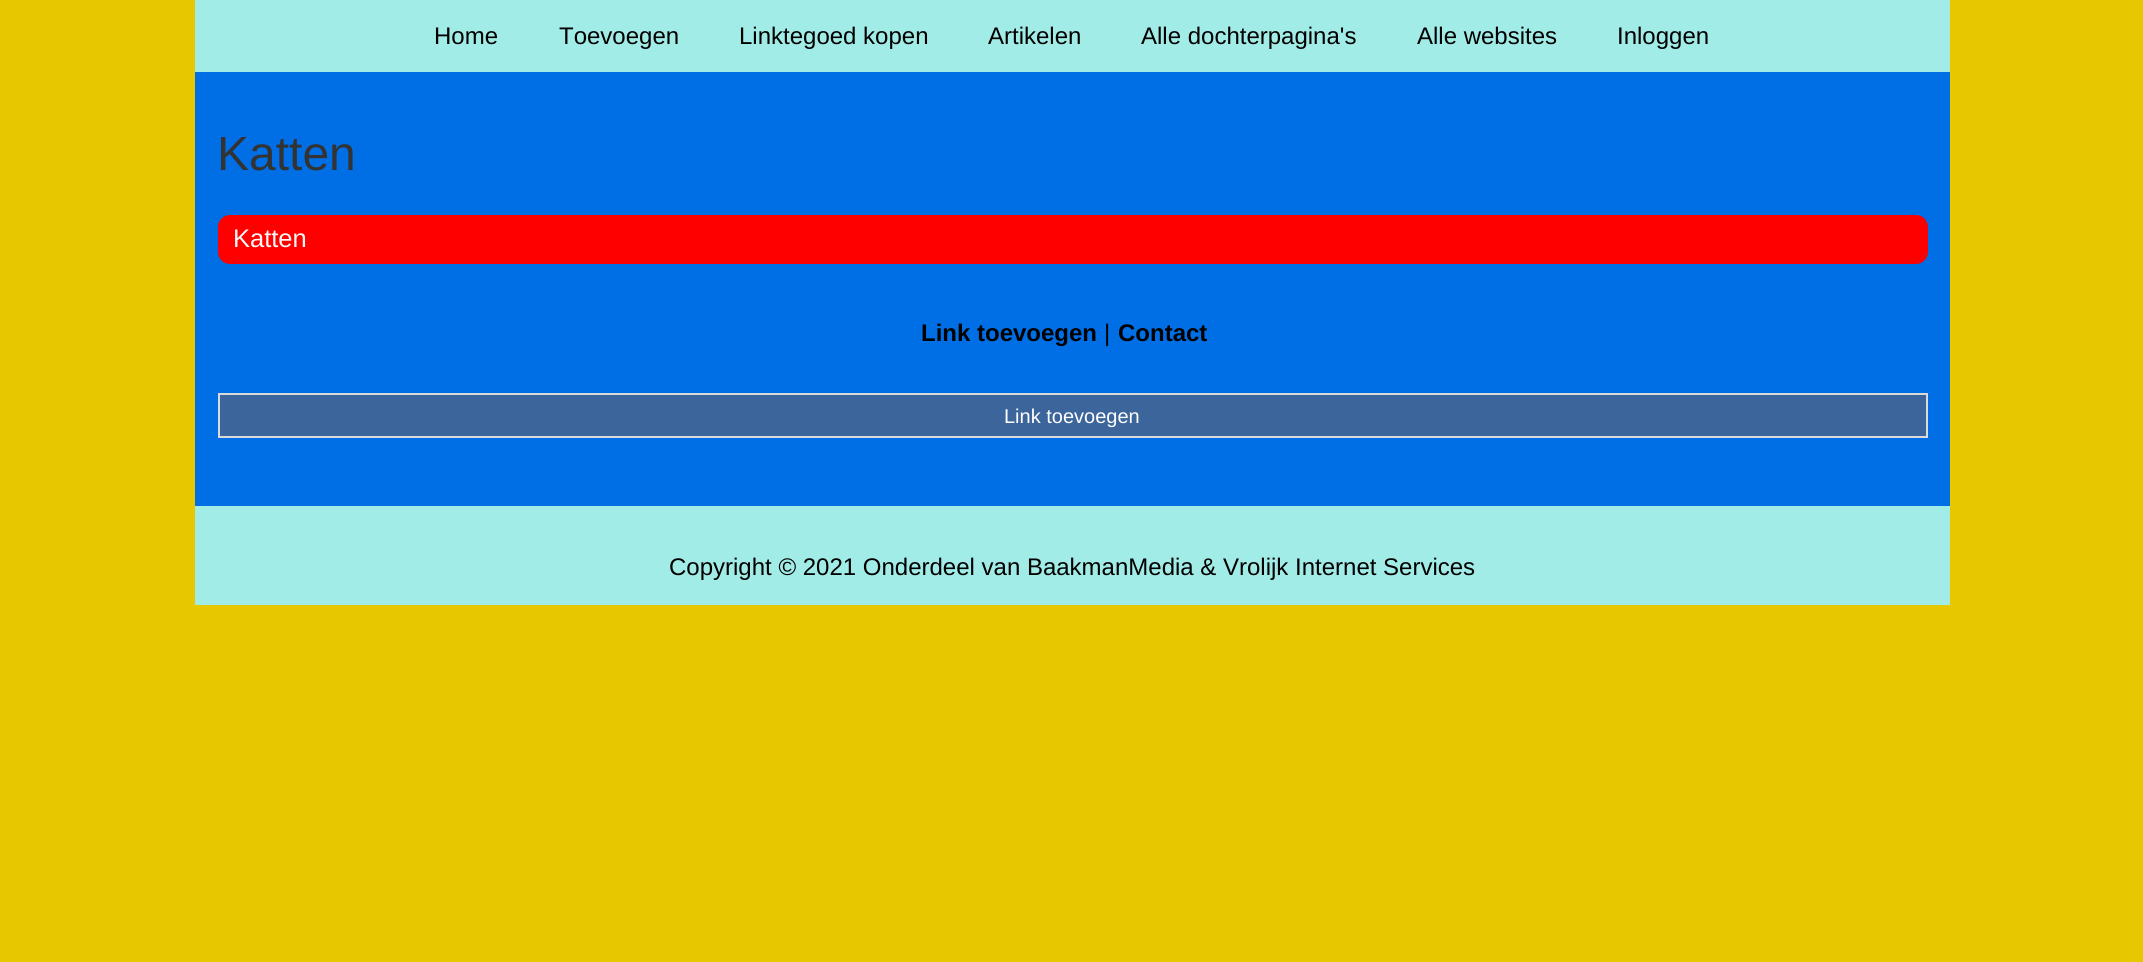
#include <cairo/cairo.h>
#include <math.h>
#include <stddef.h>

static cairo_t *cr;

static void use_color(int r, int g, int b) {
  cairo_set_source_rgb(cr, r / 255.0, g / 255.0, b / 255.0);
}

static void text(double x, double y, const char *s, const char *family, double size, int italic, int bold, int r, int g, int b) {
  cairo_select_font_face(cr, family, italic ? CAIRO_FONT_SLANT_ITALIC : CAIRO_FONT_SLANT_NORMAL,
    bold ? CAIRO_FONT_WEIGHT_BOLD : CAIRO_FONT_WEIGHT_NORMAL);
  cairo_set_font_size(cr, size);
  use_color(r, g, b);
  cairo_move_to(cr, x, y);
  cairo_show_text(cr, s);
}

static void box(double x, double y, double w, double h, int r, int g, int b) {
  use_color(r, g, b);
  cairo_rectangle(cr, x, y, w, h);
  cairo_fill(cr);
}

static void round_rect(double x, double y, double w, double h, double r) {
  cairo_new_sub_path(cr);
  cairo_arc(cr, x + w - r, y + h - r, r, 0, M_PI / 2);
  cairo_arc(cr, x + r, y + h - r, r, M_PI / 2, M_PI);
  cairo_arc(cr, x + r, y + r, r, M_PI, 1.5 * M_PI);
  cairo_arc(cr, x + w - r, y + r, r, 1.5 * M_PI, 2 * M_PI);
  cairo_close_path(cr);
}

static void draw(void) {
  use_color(230, 199, 0);
  cairo_paint(cr);
  box(195, 0, 1755, 72, 162, 236, 231);
  box(195, 72, 1755, 434, 0, 111, 230);
  round_rect(219, 216, 1708, 47, 11);
  use_color(255, 0, 0);
  cairo_stroke(cr);
  round_rect(219, 216, 1707, 47, 11);
  cairo_fill(cr);
  use_color(59, 101, 155);
  cairo_rectangle(cr, 219, 394, 1708, 43);
  cairo_fill_preserve(cr);
  use_color(218, 218, 218);
  cairo_stroke(cr);
  box(195, 506, 1755, 99, 162, 236, 231);
  text(434, 44, "Home", "Liberation Sans", 24, 0, 0, 0, 0, 0);
  text(559, 44, "Toevoegen", "Liberation Sans", 24, 0, 0, 0, 0, 0);
  text(739, 44, "Linktegoed kopen", "Liberation Sans", 24, 0, 0, 0, 0, 0);
  text(988, 44, "Artikelen", "Liberation Sans", 24, 0, 0, 0, 0, 0);
  text(1141, 44, "Alle dochterpagina's", "Liberation Sans", 24, 0, 0, 0, 0, 0);
  text(1417, 44, "Alle websites", "Liberation Sans", 24, 0, 0, 0, 0, 0);
  text(1617, 44, "Inloggen", "Liberation Sans", 24, 0, 0, 0, 0, 0);
  text(217, 170, "Katten", "Liberation Sans", 48, 0, 0, 51, 51, 51);
  text(233, 247, "Katten", "Liberation Sans", 25.5, 0, 0, 248, 248, 247);
  text(921, 341, "Link toevoegen", "Liberation Sans", 24, 0, 1, 0, 0, 0);
  text(1104, 341, "|", "Liberation Sans", 24, 0, 0, 0, 0, 0);
  text(1118, 341, "Contact", "Liberation Sans", 24, 0, 1, 0, 0, 0);
  text(1004, 423, "Link toevoegen", "Liberation Sans", 20, 0, 0, 255, 255, 255);
  text(669, 575, "Copyright © 2021 Onderdeel van BaakmanMedia & Vrolijk Internet Services", "Liberation Sans", 24, 0, 0, 0, 0, 0);
}

int main(void) {
  cairo_surface_t *surface = cairo_image_surface_create(CAIRO_FORMAT_RGB24, 2143, 962);
  cr = cairo_create(surface);
  cairo_font_options_t *options = cairo_font_options_create();
  cairo_font_options_set_hint_metrics(options, CAIRO_HINT_METRICS_OFF);
  cairo_font_options_set_hint_style(options, CAIRO_HINT_STYLE_NONE);
  cairo_set_font_options(cr, options);
  cairo_set_miter_limit(cr, 4);
  draw();
  cairo_surface_write_to_png(surface, "out.png");
  cairo_font_options_destroy(options);
  cairo_destroy(cr);
  cairo_surface_destroy(surface);
  return 0;
}
